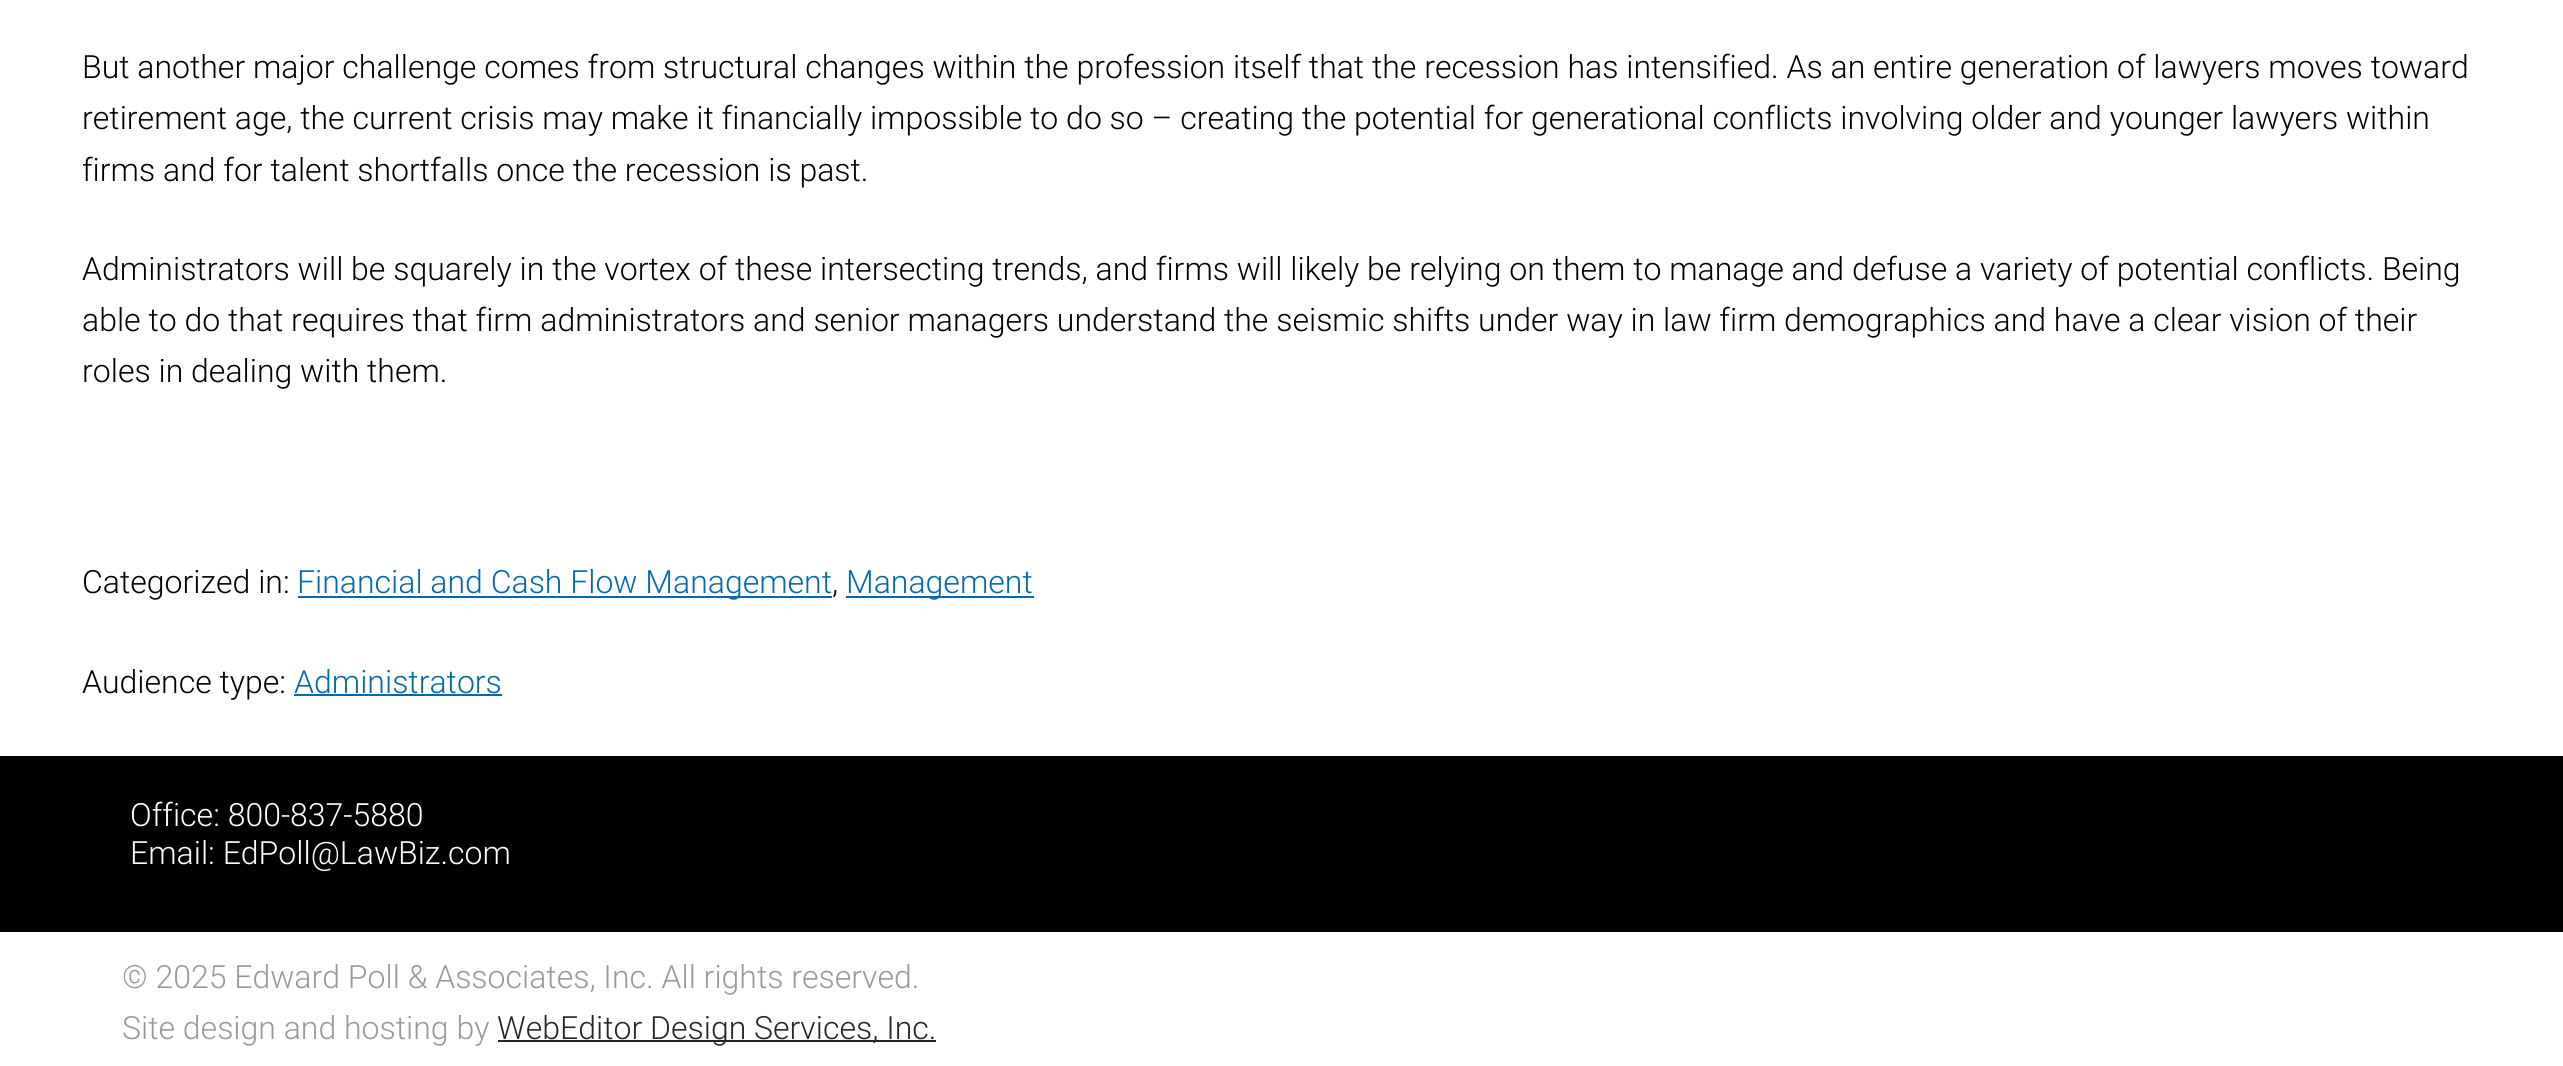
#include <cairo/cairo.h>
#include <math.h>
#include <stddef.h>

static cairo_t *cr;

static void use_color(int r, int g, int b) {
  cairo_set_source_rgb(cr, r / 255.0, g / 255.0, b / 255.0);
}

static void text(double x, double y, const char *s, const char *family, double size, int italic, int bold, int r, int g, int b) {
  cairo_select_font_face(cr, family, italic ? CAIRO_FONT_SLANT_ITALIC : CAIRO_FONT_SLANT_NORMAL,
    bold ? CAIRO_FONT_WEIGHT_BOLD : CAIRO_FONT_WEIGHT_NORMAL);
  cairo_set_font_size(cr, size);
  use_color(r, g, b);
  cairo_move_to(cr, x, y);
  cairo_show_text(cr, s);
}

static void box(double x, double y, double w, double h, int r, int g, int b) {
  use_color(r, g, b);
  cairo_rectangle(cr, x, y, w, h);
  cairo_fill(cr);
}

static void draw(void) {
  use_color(255, 255, 255);
  cairo_paint(cr);
  box(298, 596, 534, 2, 1, 105, 173);
  box(846, 596, 188, 2, 1, 105, 173);
  box(294, 694, 208, 2, 1, 105, 173);
  box(0, 756, 2563, 176, 0, 0, 0);
  box(498, 1040, 438, 2, 36, 38, 40);
  text(82, 78, "But another major challenge comes from structural changes within the profession itself that the recession has intensified. As an entire generation of lawyers moves toward", "Roboto Light", 32, 0, 0, 0, 0, 0);
  text(82, 129, "retirement age, the current crisis may make it financially impossible to do so – creating the potential for generational conflicts involving older and younger lawyers within", "Roboto Light", 32, 0, 0, 0, 0, 0);
  text(82, 181, "firms and for talent shortfalls once the recession is past.", "Roboto Light", 32, 0, 0, 0, 0, 0);
  text(82, 280, "Administrators will be squarely in the vortex of these intersecting trends, and firms will likely be relying on them to manage and defuse a variety of potential conflicts. Being", "Roboto Light", 32, 0, 0, 0, 0, 0);
  text(82, 331, "able to do that requires that firm administrators and senior managers understand the seismic shifts under way in law firm demographics and have a clear vision of their", "Roboto Light", 32, 0, 0, 0, 0, 0);
  text(82, 382, "roles in dealing with them.", "Roboto Light", 32, 0, 0, 0, 0, 0);
  text(82, 593, "Categorized in:", "Roboto Light", 32, 0, 0, 0, 0, 0);
  text(297, 593, "Financial and Cash Flow Management", "Roboto Light", 32, 0, 0, 1, 105, 173);
  text(832, 593, ",", "Roboto Light", 32, 0, 0, 0, 0, 0);
  text(846, 593, "Management", "Roboto Light", 32, 0, 0, 1, 105, 173);
  text(82, 693, "Audience type:", "Roboto Light", 32, 0, 0, 0, 0, 0);
  text(294, 693, "Administrators", "Roboto Light", 32, 0, 0, 1, 105, 173);
  text(130, 826, "Office: 800-837-5880", "Roboto Light", 32, 0, 0, 255, 255, 255);
  text(130, 864, "Email: EdPoll@LawBiz.com", "Roboto Light", 32, 0, 0, 255, 255, 255);
  text(122, 988, "© 2025 Edward Poll & Associates, Inc. All rights reserved.", "Roboto Light", 32, 0, 0, 153, 153, 153);
  text(122, 1039, "Site design and hosting by", "Roboto Light", 32, 0, 0, 153, 153, 153);
  text(497, 1039, "WebEditor Design Services, Inc.", "Roboto Light", 32, 0, 0, 36, 38, 40);
}

int main(void) {
  cairo_surface_t *surface = cairo_image_surface_create(CAIRO_FORMAT_RGB24, 2563, 1066);
  cr = cairo_create(surface);
  cairo_font_options_t *options = cairo_font_options_create();
  cairo_font_options_set_hint_metrics(options, CAIRO_HINT_METRICS_OFF);
  cairo_font_options_set_hint_style(options, CAIRO_HINT_STYLE_NONE);
  cairo_set_font_options(cr, options);
  cairo_set_miter_limit(cr, 4);
  draw();
  cairo_surface_write_to_png(surface, "out.png");
  cairo_font_options_destroy(options);
  cairo_destroy(cr);
  cairo_surface_destroy(surface);
  return 0;
}
